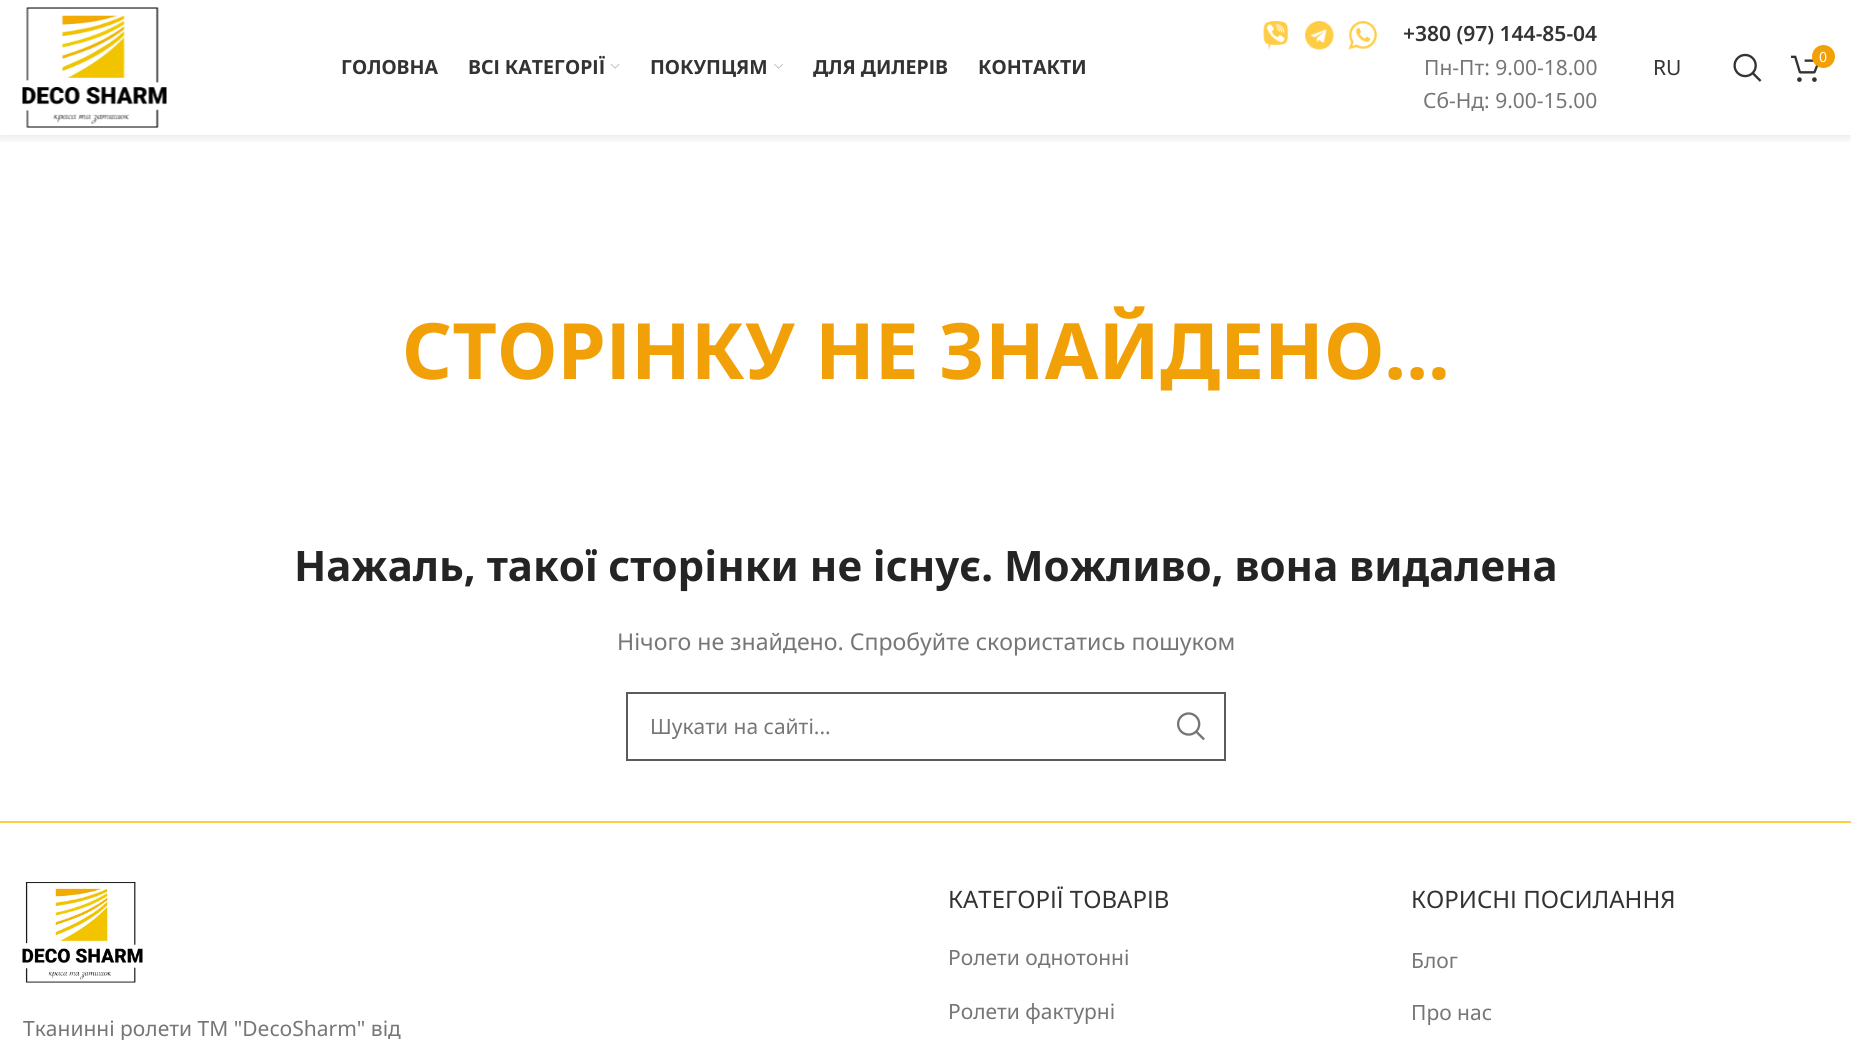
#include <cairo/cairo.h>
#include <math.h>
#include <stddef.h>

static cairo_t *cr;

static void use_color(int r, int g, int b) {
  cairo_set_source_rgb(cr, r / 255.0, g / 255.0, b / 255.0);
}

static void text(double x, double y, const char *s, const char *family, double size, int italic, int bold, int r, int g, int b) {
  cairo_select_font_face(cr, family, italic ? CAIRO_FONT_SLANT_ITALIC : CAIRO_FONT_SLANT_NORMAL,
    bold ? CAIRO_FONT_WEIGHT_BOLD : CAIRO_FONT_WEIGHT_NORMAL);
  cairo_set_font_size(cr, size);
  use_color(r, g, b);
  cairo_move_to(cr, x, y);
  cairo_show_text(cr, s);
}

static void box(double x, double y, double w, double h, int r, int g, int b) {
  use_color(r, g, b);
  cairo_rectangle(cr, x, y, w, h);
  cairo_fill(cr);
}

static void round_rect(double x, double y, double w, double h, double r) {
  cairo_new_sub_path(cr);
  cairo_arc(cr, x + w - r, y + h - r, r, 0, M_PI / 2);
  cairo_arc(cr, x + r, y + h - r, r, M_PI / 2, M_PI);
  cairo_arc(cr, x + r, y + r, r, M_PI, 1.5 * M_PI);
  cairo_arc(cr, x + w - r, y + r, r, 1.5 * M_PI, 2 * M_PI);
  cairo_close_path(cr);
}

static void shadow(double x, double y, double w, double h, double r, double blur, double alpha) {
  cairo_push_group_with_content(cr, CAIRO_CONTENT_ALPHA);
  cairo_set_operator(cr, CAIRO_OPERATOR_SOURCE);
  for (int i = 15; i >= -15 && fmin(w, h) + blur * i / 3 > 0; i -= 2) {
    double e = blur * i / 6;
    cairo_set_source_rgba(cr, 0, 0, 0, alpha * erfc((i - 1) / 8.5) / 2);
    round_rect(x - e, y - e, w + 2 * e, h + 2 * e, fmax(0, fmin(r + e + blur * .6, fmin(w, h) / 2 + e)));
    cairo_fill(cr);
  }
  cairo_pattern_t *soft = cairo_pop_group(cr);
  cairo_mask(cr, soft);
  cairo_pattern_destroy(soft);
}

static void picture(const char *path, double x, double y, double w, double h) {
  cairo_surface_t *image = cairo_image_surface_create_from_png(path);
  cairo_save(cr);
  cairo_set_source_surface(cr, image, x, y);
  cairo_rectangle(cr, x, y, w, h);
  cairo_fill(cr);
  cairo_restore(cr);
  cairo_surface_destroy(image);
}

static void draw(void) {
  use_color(255, 255, 255);
  cairo_paint(cr);
  cairo_save(cr);
  cairo_rectangle(cr, 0, 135, 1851, 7);
  cairo_clip(cr);
  use_color(0, 0, 0);
  shadow(0, 2, 1851, 135, 0, 6, 0.1);
  cairo_restore(cr);
  picture("img_01.png", 22, 7, 145, 121);
  picture("img_02.png", 610, 63, 10, 6);
  picture("img_03.png", 774, 63, 9, 6);
  picture("img_04.png", 1263, 21, 26, 29);
  picture("img_05.png", 1305, 21, 29, 29);
  picture("img_06.png", 1348, 21, 29, 29);
  picture("img_07.png", 1733, 53, 29, 29);
  picture("img_08.png", 1791, 55, 28, 27);
  use_color(242, 160, 7);
  cairo_arc(cr, 1823.5, 56.5, 11.5, 0, 2 * M_PI);
  cairo_fill(cr);
  cairo_rectangle(cr, 627, 693, 598, 67);
  use_color(91, 91, 91);
  cairo_stroke(cr);
  picture("img_09.png", 1177, 712, 28, 29);
  box(0, 821, 1851, 2, 255, 205, 69);
  picture("img_10.png", 22, 882, 121, 101);
  text(341, 74, "ГОЛОВНА", "Noto Sans", 19.5, 0, 1, 51, 51, 51);
  text(468, 74, "ВСІ КАТЕГОРІЇ", "Noto Sans", 19.5, 0, 1, 51, 51, 51);
  text(650, 74, "ПОКУПЦЯМ", "Noto Sans", 19.5, 0, 1, 51, 51, 51);
  text(813, 74, "ДЛЯ ДИЛЕРІВ", "Noto Sans", 19.5, 0, 1, 51, 51, 51);
  text(978, 74, "КОНТАКТИ", "Noto Sans", 19.5, 0, 1, 51, 51, 51);
  text(1403, 41, "+380 (97) 144-85-04", "Noto Sans SemiBold", 21, 0, 0, 51, 51, 51);
  text(1424, 75, "Пн-Пт: 9.00-18.00", "Noto Sans", 21, 0, 0, 118, 118, 118);
  text(1423, 108, "Сб-Нд: 9.00-15.00", "Noto Sans", 21, 0, 0, 118, 118, 118);
  text(1653, 75, "RU", "Noto Sans", 21, 0, 0, 51, 51, 51);
  text(1819, 62, "0", "Noto Sans", 14, 0, 0, 255, 255, 255);
  text(402, 379, "СТОРІНКУ НЕ ЗНАЙДЕНО...", "Noto Sans", 77.75, 0, 1, 242, 160, 7);
  text(294, 581, "Нажаль, такої сторінки не існує. Можливо, вона видалена", "Noto Sans", 42, 0, 1, 36, 36, 36);
  text(617, 650, "Нічого не знайдено. Спробуйте скористатись пошуком", "Noto Sans", 23.1, 0, 0, 118, 118, 118);
  text(650, 734, "Шукати на сайті...", "Noto Sans", 21, 0, 0, 118, 118, 118);
  text(948, 908, "КАТЕГОРІЇ ТОВАРІВ", "Noto Sans", 24, 0, 0, 51, 51, 51);
  text(948, 965, "Ролети однотонні", "Noto Sans", 21, 0, 0, 118, 118, 118);
  text(948, 1019, "Ролети фактурні", "Noto Sans", 21, 0, 0, 118, 118, 118);
  text(1411, 908, "КОРИСНІ ПОСИЛАННЯ", "Noto Sans", 24, 0, 0, 51, 51, 51);
  text(1411, 968, "Блог", "Noto Sans", 21, 0, 0, 118, 118, 118);
  text(1411, 1020, "Про нас", "Noto Sans", 21, 0, 0, 118, 118, 118);
  text(23, 1036, "Тканинні ролети ТМ \"DecoSharm\" від", "Noto Sans", 21, 0, 0, 118, 118, 118);
}

int main(void) {
  cairo_surface_t *surface = cairo_image_surface_create(CAIRO_FORMAT_RGB24, 1851, 1040);
  cr = cairo_create(surface);
  cairo_font_options_t *options = cairo_font_options_create();
  cairo_font_options_set_hint_metrics(options, CAIRO_HINT_METRICS_OFF);
  cairo_font_options_set_hint_style(options, CAIRO_HINT_STYLE_NONE);
  cairo_set_font_options(cr, options);
  cairo_set_miter_limit(cr, 4);
  draw();
  cairo_surface_write_to_png(surface, "out.png");
  cairo_font_options_destroy(options);
  cairo_destroy(cr);
  cairo_surface_destroy(surface);
  return 0;
}
